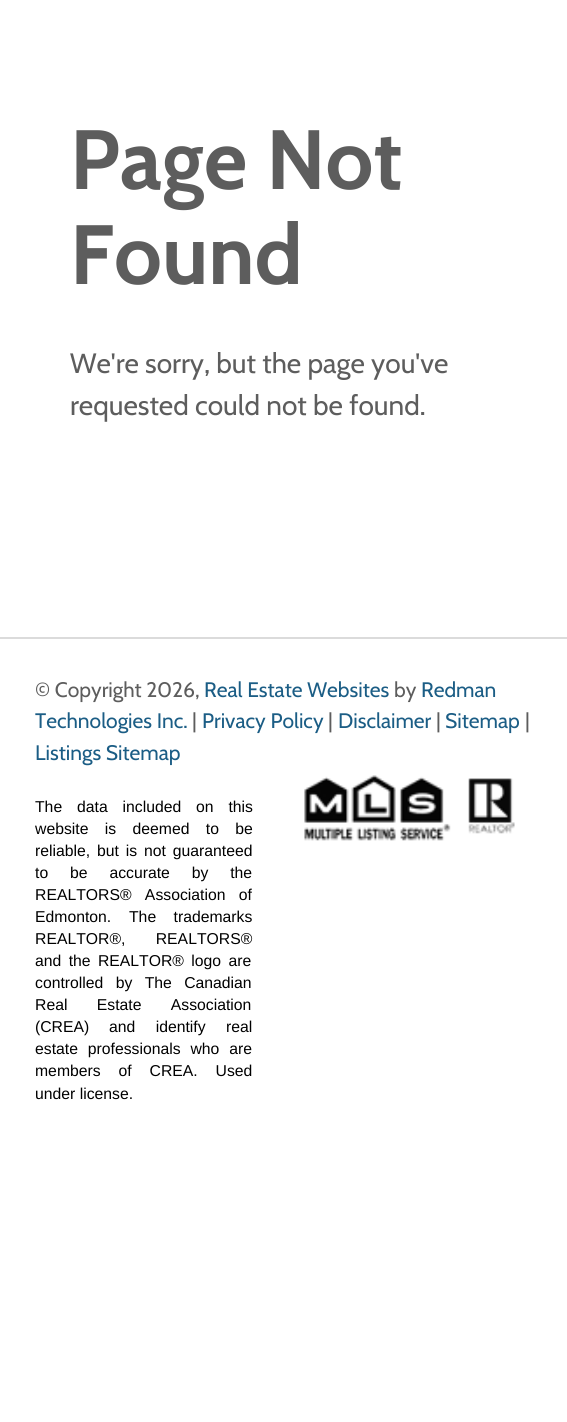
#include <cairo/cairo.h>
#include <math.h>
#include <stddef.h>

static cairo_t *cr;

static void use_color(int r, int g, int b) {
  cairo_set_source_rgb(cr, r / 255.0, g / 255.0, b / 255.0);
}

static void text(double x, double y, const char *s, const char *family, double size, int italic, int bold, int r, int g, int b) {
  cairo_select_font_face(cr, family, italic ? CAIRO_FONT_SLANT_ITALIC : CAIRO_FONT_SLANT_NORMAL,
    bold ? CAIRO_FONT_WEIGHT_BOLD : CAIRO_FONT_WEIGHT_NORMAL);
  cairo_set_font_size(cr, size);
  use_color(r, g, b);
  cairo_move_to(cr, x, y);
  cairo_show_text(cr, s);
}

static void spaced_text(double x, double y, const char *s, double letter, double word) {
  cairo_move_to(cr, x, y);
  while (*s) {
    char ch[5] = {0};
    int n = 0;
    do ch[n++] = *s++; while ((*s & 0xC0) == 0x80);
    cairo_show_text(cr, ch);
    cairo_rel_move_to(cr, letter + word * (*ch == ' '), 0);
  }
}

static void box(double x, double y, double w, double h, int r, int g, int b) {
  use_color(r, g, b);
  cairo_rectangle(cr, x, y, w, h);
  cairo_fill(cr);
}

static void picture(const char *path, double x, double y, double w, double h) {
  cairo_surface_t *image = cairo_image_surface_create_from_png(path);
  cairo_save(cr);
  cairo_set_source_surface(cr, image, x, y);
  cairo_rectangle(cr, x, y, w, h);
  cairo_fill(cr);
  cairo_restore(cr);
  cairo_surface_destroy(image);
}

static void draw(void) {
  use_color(255, 255, 255);
  cairo_paint(cr);
  box(0, 637, 567, 2, 219, 219, 219);
  picture("img_01.png", 304, 775, 211, 66);
  text(70, 189, "Page Not", "Cabin", 84, 0, 1, 93, 93, 93);
  text(70, 284, "Found", "Cabin", 84, 0, 1, 93, 93, 93);
  text(70, 373, "We're sorry, but the page you've", "Cabin", 28, 0, 0, 93, 93, 93);
  text(70, 415, "requested could not be found.", "Cabin", 28, 0, 0, 93, 93, 93);
  text(35, 697, "© Copyright 2026,", "Cabin", 21, 0, 0, 93, 93, 93);
  text(204, 697, "Real Estate Websites", "Cabin", 21, 0, 0, 27, 93, 133);
  text(394, 697, "by", "Cabin", 21, 0, 0, 93, 93, 93);
  text(421, 697, "Redman", "Cabin", 21, 0, 0, 27, 93, 133);
  text(35, 728, "Technologies Inc.", "Cabin", 21, 0, 0, 27, 93, 133);
  text(192, 728, "|", "Cabin", 21, 0, 0, 93, 93, 93);
  text(202, 728, "Privacy Policy", "Cabin", 21, 0, 0, 27, 93, 133);
  text(328, 728, "|", "Cabin", 21, 0, 0, 93, 93, 93);
  text(338, 728, "Disclaimer", "Cabin", 21, 0, 0, 27, 93, 133);
  text(436, 728, "|", "Cabin", 21, 0, 0, 93, 93, 93);
  text(445, 728, "Sitemap", "Cabin", 21, 0, 0, 27, 93, 133);
  text(525, 728, "|", "Cabin", 21, 0, 0, 93, 93, 93);
  text(35, 760, "Listings Sitemap", "Cabin", 21, 0, 0, 27, 93, 133);
  cairo_select_font_face(cr, "Liberation Sans", CAIRO_FONT_SLANT_NORMAL, CAIRO_FONT_WEIGHT_NORMAL);
  cairo_set_font_size(cr, 15.75);
  use_color(0, 0, 0);
  spaced_text(35, 812, "The data included on this", 0, 10.5);
  spaced_text(35, 834, "website is deemed to be", 0, 12);
  spaced_text(35, 856, "reliable, but is not guaranteed", 0, 2.5);
  spaced_text(35, 878, "to be accurate by the", 0, 17.5);
  spaced_text(35, 900, "REALTORS® Association of", 0, 9);
  text(35, 922, "Edmonton.", "Liberation Sans", 15.75, 0, 0, 0, 0, 0);
  spaced_text(129, 922, "The trademarks", 0, 13);
  spaced_text(35, 944, "REALTOR®, REALTORS®", 0, 26);
  spaced_text(35, 966, "and the REALTOR® logo are", 0, 3);
  spaced_text(35, 988, "controlled by The Canadian", 0, 8);
  spaced_text(35, 1010, "Real Estate Association", 0, 25);
  text(35, 1032, "(CREA)", "Liberation Sans", 15.75, 0, 0, 0, 0, 0);
  spaced_text(109, 1032, "and identify real", 0, 16);
  spaced_text(35, 1054, "estate professionals who are", 0, 5.5);
  spaced_text(35, 1076, "members of CREA. Used", 0, 13.5);
  text(35, 1099, "under license.", "Liberation Sans", 15.75, 0, 0, 0, 0, 0);
}

int main(void) {
  cairo_surface_t *surface = cairo_image_surface_create(CAIRO_FORMAT_RGB24, 567, 1422);
  cr = cairo_create(surface);
  cairo_font_options_t *options = cairo_font_options_create();
  cairo_font_options_set_hint_metrics(options, CAIRO_HINT_METRICS_OFF);
  cairo_font_options_set_hint_style(options, CAIRO_HINT_STYLE_NONE);
  cairo_set_font_options(cr, options);
  cairo_set_miter_limit(cr, 4);
  draw();
  cairo_surface_write_to_png(surface, "out.png");
  cairo_font_options_destroy(options);
  cairo_destroy(cr);
  cairo_surface_destroy(surface);
  return 0;
}
